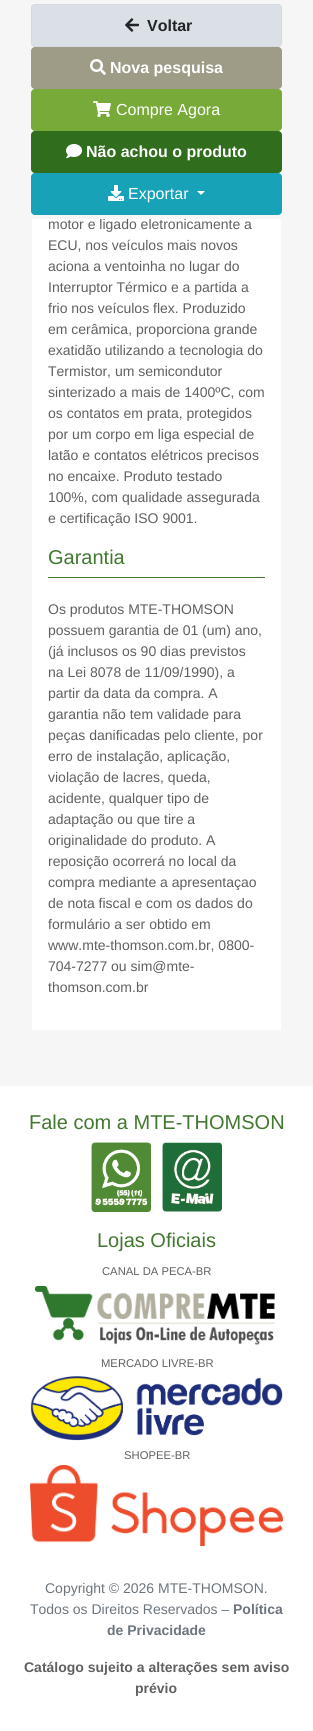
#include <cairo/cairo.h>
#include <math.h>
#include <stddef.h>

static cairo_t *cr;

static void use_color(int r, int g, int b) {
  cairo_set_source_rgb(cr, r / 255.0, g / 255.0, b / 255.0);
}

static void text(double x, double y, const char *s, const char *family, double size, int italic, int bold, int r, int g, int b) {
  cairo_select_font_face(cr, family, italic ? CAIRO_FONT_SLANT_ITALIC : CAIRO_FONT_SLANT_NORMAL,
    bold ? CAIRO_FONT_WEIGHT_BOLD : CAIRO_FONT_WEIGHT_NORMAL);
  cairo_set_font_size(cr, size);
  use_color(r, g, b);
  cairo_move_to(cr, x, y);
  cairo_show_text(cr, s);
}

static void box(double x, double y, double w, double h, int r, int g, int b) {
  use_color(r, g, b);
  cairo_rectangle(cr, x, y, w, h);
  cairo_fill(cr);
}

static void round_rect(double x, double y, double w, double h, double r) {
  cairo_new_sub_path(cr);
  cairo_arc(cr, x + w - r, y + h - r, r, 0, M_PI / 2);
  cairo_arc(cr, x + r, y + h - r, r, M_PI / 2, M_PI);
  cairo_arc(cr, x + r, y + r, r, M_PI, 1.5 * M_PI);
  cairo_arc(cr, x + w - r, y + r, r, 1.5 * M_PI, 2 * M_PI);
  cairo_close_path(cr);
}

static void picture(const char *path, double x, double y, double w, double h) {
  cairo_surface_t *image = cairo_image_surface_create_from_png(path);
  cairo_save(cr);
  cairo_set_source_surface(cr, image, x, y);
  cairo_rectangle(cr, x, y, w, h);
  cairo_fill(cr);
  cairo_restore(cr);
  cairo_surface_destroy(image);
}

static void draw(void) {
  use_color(246, 246, 246);
  cairo_paint(cr);
  use_color(218, 224, 229);
  round_rect(31.5, 4.5, 250, 42, 3.5);
  cairo_fill_preserve(cr);
  use_color(211, 217, 223);
  cairo_set_line_width(cr, 1);
  cairo_stroke(cr);
  picture("img_01.png", 125, 18, 14, 14);
  use_color(158, 155, 134);
  round_rect(31.5, 47.5, 250, 41, 3.5);
  cairo_fill_preserve(cr);
  cairo_stroke(cr);
  picture("img_02.png", 90, 59, 16, 16);
  use_color(119, 170, 56);
  round_rect(31.5, 89.5, 250, 41, 3.5);
  cairo_fill_preserve(cr);
  cairo_stroke(cr);
  picture("img_03.png", 93, 101, 18, 16);
  use_color(48, 109, 28);
  round_rect(31.5, 131.5, 250, 41, 3.5);
  cairo_fill_preserve(cr);
  cairo_stroke(cr);
  picture("img_04.png", 66, 144, 16, 14);
  use_color(23, 162, 184);
  round_rect(31.5, 173.5, 250, 41, 3.5);
  cairo_fill_preserve(cr);
  cairo_stroke(cr);
  picture("img_05.png", 108, 185, 16, 16);
  use_color(255, 255, 255);
  cairo_new_path(cr);
  cairo_move_to(cr, 197, 191);
  cairo_line_to(cr, 205, 191);
  cairo_line_to(cr, 201, 195);
  cairo_close_path(cr);
  cairo_fill(cr);
  box(32, 219, 249, 811, 255, 255, 255);
  box(48, 577, 217, 1, 66, 119, 48);
  box(0, 1086, 313, 645, 255, 255, 255);
  picture("img_06.png", 91, 1142, 60, 70);
  picture("img_07.png", 162, 1142, 60, 70);
  picture("img_08.png", 35, 1286, 240, 59);
  picture("img_09.png", 30, 1376, 253, 65);
  picture("img_10.png", 30, 1465, 253, 81);
  text(147, 31, "Voltar", "Liberation Sans", 16, 0, 1, 33, 37, 41);
  text(110, 73, "Nova pesquisa", "Liberation Sans", 16, 0, 1, 255, 255, 255);
  text(116, 115, "Compre Agora", "Liberation Sans", 16, 0, 0, 255, 255, 255);
  text(86, 157, "Não achou o produto", "Liberation Sans", 16, 0, 1, 255, 255, 255);
  text(128, 199, "Exportar", "Liberation Sans", 16, 0, 0, 255, 255, 255);
  text(48, 229, "motor e ligado eletronicamente a", "Liberation Sans", 14, 0, 0, 96, 96, 96);
  box(100, 218, 86, 1, 246, 246, 246);
  text(48, 250, "ECU, nos veículos mais novos", "Liberation Sans", 14, 0, 0, 96, 96, 96);
  text(48, 271, "aciona a ventoinha no lugar do", "Liberation Sans", 14, 0, 0, 96, 96, 96);
  text(48, 292, "Interruptor Térmico e a partida a", "Liberation Sans", 14, 0, 0, 96, 96, 96);
  text(48, 313, "frio nos veículos flex. Produzido", "Liberation Sans", 14, 0, 0, 96, 96, 96);
  text(48, 334, "em cerâmica, proporciona grande", "Liberation Sans", 14, 0, 0, 96, 96, 96);
  text(48, 355, "exatidão utilizando a tecnologia do", "Liberation Sans", 14, 0, 0, 96, 96, 96);
  text(48, 376, "Termistor, um semicondutor", "Liberation Sans", 14, 0, 0, 96, 96, 96);
  text(48, 397, "sinterizado a mais de 1400ºC, com", "Liberation Sans", 14, 0, 0, 96, 96, 96);
  text(48, 418, "os contatos em prata, protegidos", "Liberation Sans", 14, 0, 0, 96, 96, 96);
  text(48, 439, "por um corpo em liga especial de", "Liberation Sans", 14, 0, 0, 96, 96, 96);
  text(48, 460, "latão e contatos elétricos precisos", "Liberation Sans", 14, 0, 0, 96, 96, 96);
  text(48, 481, "no encaixe. Produto testado", "Liberation Sans", 14, 0, 0, 96, 96, 96);
  text(48, 502, "100%, com qualidade assegurada", "Liberation Sans", 14, 0, 0, 96, 96, 96);
  text(48, 523, "e certificação ISO 9001.", "Liberation Sans", 14, 0, 0, 96, 96, 96);
  text(48, 564, "Garantia", "Liberation Sans", 20, 0, 0, 66, 119, 48);
  text(48, 614, "Os produtos MTE-THOMSON", "Liberation Sans", 14, 0, 0, 96, 96, 96);
  text(48, 635, "possuem garantia de 01 (um) ano,", "Liberation Sans", 14, 0, 0, 96, 96, 96);
  text(48, 656, "(já inclusos os 90 dias previstos", "Liberation Sans", 14, 0, 0, 96, 96, 96);
  text(48, 677, "na Lei 8078 de 11/09/1990), a", "Liberation Sans", 14, 0, 0, 96, 96, 96);
  text(48, 698, "partir da data da compra. A", "Liberation Sans", 14, 0, 0, 96, 96, 96);
  text(48, 719, "garantia não tem validade para", "Liberation Sans", 14, 0, 0, 96, 96, 96);
  text(48, 740, "peças danificadas pelo cliente, por", "Liberation Sans", 14, 0, 0, 96, 96, 96);
  text(48, 761, "erro de instalação, aplicação,", "Liberation Sans", 14, 0, 0, 96, 96, 96);
  text(48, 782, "violação de lacres, queda,", "Liberation Sans", 14, 0, 0, 96, 96, 96);
  text(48, 803, "acidente, qualquer tipo de", "Liberation Sans", 14, 0, 0, 96, 96, 96);
  text(48, 824, "adaptação ou que tire a", "Liberation Sans", 14, 0, 0, 96, 96, 96);
  text(48, 845, "originalidade do produto. A", "Liberation Sans", 14, 0, 0, 96, 96, 96);
  text(48, 866, "reposição ocorrerá no local da", "Liberation Sans", 14, 0, 0, 96, 96, 96);
  text(48, 887, "compra mediante a apresentaçao", "Liberation Sans", 14, 0, 0, 96, 96, 96);
  text(48, 908, "de nota fiscal e com os dados do", "Liberation Sans", 14, 0, 0, 96, 96, 96);
  text(48, 929, "formulário a ser obtido em", "Liberation Sans", 14, 0, 0, 96, 96, 96);
  text(48, 950, "www.mte-thomson.com.br, 0800-", "Liberation Sans", 14, 0, 0, 96, 96, 96);
  text(48, 971, "704-7277 ou sim@mte-", "Liberation Sans", 14, 0, 0, 96, 96, 96);
  text(48, 992, "thomson.com.br", "Liberation Sans", 14, 0, 0, 96, 96, 96);
  text(29, 1129, "Fale com a MTE-THOMSON", "Liberation Sans", 20, 0, 0, 66, 119, 48);
  text(97, 1247, "Lojas Oficiais", "Liberation Sans", 20, 0, 0, 66, 119, 48);
  text(102, 1275, "CANAL DA PECA-BR", "Liberation Sans", 11.25, 0, 0, 96, 96, 96);
  text(101, 1367, "MERCADO LIVRE-BR", "Liberation Sans", 11.25, 0, 0, 96, 96, 96);
  text(124, 1459, "SHOPEE-BR", "Liberation Sans", 11.25, 0, 0, 96, 96, 96);
  text(45, 1593, "Copyright © 2026 MTE-THOMSON.", "Liberation Sans", 14, 0, 0, 108, 117, 125);
  text(30, 1614, "Todos os Direitos Reservados –", "Liberation Sans", 14, 0, 0, 108, 117, 125);
  text(233, 1614, "Política", "Liberation Sans", 14, 0, 1, 108, 117, 125);
  text(107, 1635, "de Privacidade", "Liberation Sans", 14, 0, 1, 108, 117, 125);
  text(24, 1672, "Catálogo sujeito a alterações sem aviso", "Liberation Sans", 14, 0, 1, 96, 96, 96);
  text(135, 1693, "prévio", "Liberation Sans", 14, 0, 1, 96, 96, 96);
}

int main(void) {
  cairo_surface_t *surface = cairo_image_surface_create(CAIRO_FORMAT_RGB24, 313, 1731);
  cr = cairo_create(surface);
  cairo_font_options_t *options = cairo_font_options_create();
  cairo_font_options_set_hint_metrics(options, CAIRO_HINT_METRICS_OFF);
  cairo_font_options_set_hint_style(options, CAIRO_HINT_STYLE_NONE);
  cairo_set_font_options(cr, options);
  cairo_set_miter_limit(cr, 4);
  draw();
  cairo_surface_write_to_png(surface, "out.png");
  cairo_font_options_destroy(options);
  cairo_destroy(cr);
  cairo_surface_destroy(surface);
  return 0;
}
